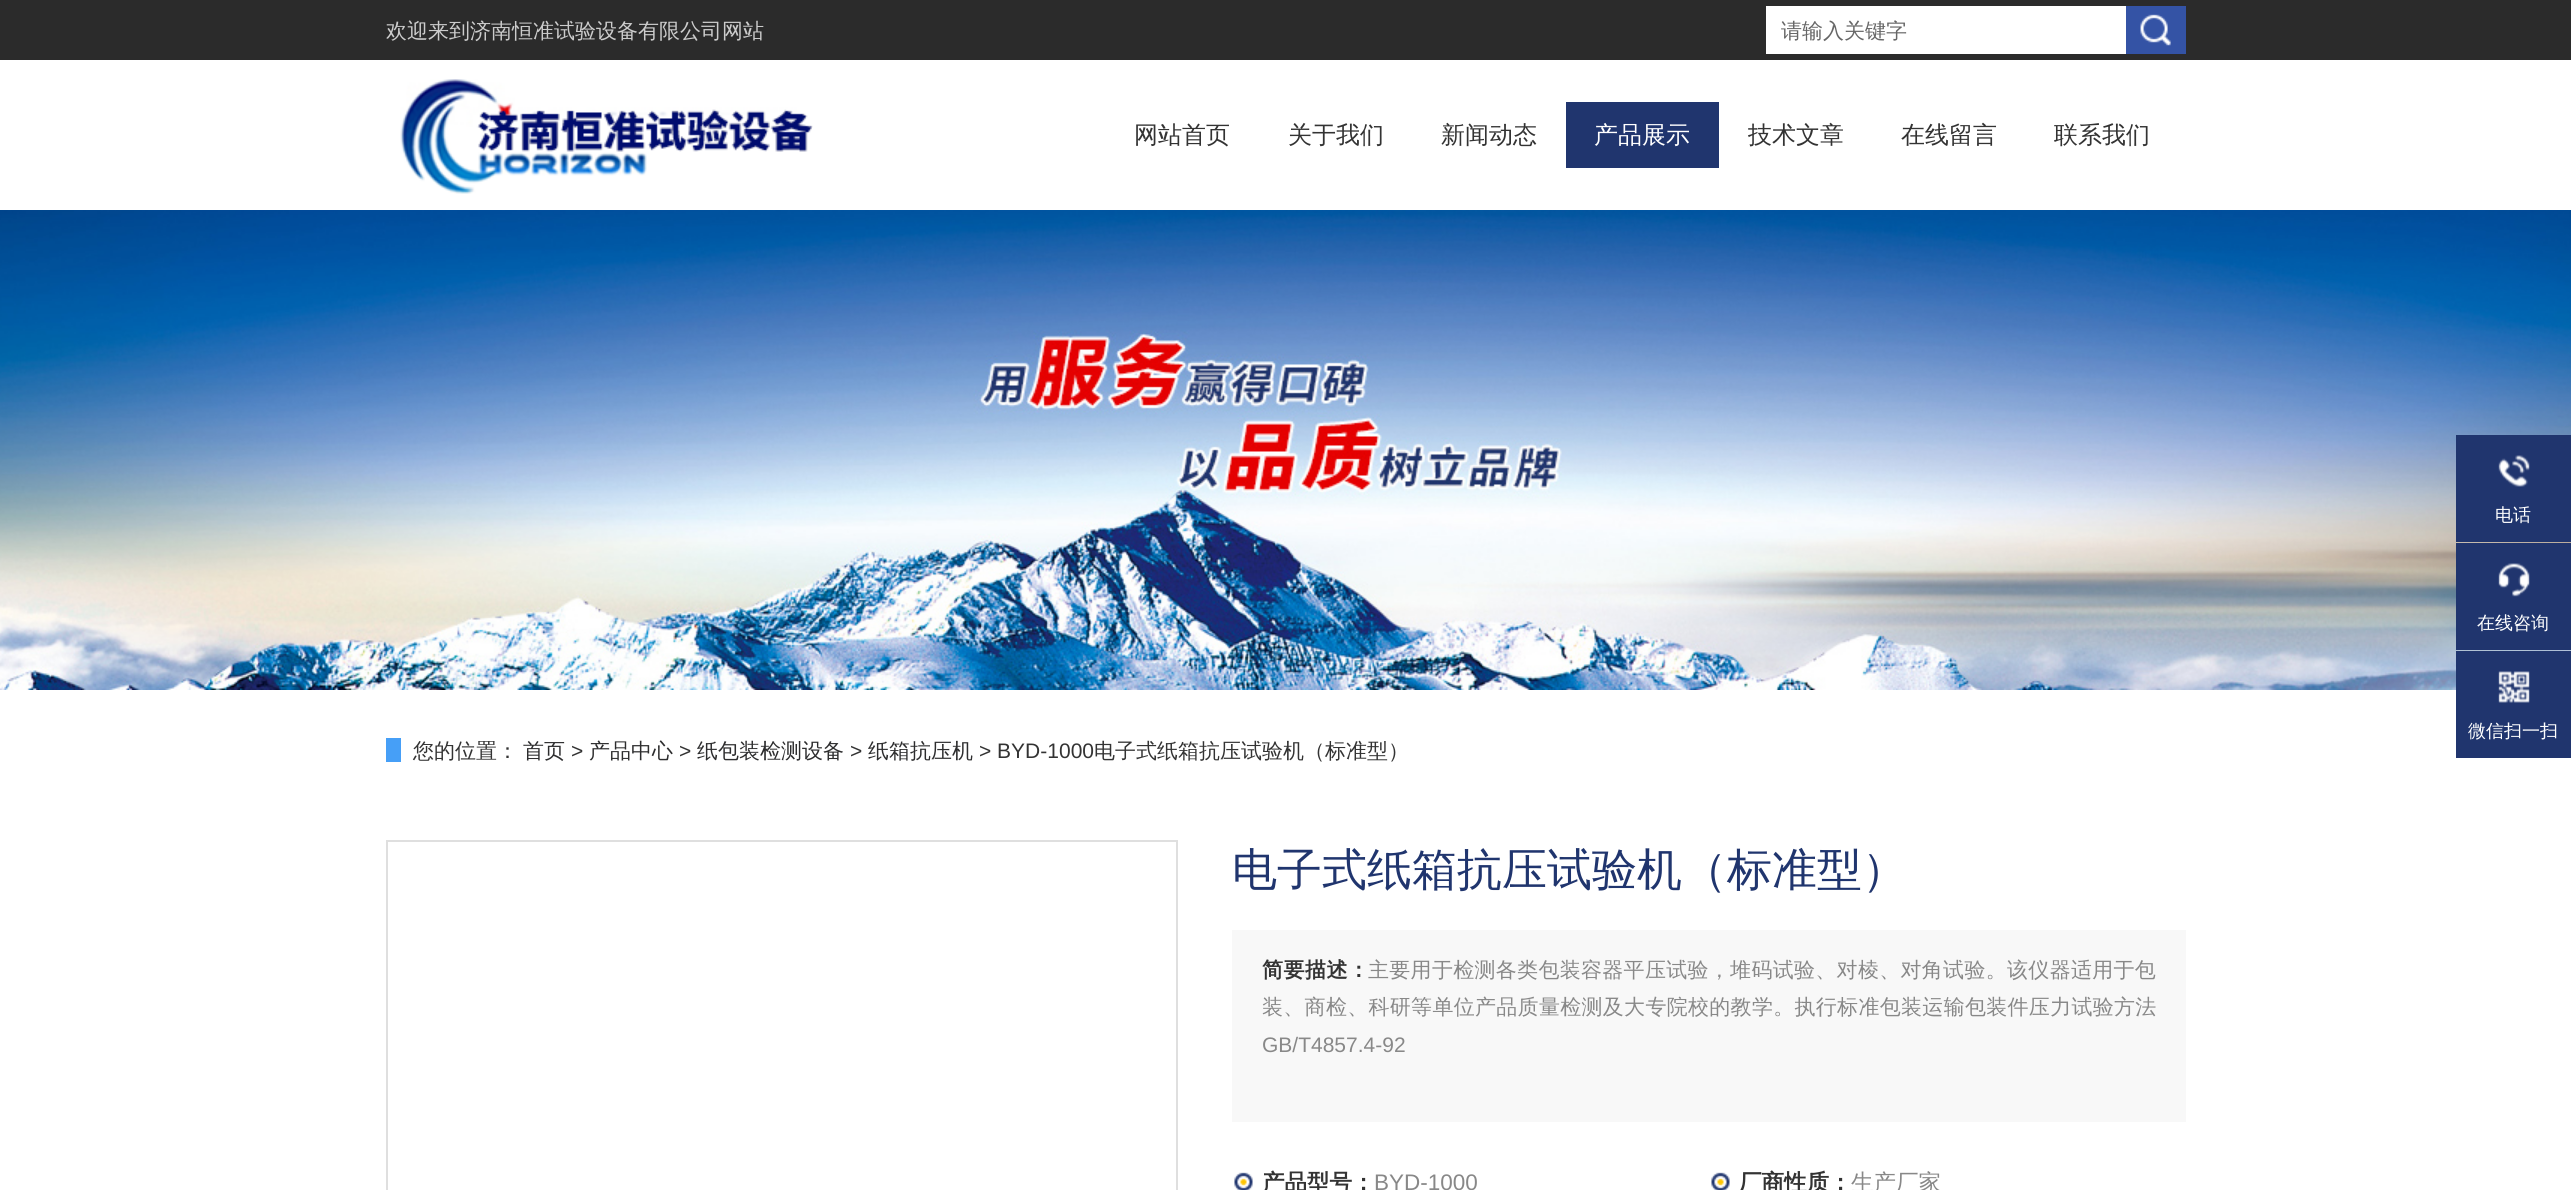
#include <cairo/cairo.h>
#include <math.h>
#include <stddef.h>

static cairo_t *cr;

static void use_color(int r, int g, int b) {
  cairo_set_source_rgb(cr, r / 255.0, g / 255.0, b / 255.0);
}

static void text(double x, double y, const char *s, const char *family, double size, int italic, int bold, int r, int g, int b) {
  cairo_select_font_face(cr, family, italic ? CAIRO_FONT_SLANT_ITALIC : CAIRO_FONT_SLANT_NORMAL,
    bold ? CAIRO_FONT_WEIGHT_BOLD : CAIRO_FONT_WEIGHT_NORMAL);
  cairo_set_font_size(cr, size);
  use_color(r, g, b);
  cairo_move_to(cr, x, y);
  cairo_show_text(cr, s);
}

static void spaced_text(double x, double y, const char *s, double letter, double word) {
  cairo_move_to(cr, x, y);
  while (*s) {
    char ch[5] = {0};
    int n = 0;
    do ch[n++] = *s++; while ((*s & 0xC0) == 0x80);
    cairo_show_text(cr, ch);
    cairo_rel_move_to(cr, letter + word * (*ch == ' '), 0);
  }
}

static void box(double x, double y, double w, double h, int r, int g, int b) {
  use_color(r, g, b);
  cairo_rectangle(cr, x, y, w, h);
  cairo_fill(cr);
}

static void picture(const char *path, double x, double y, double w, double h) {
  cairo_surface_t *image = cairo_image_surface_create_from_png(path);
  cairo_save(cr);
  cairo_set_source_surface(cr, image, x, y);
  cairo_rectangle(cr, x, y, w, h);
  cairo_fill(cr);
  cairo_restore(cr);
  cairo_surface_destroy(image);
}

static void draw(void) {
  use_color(255, 255, 255);
  cairo_paint(cr);
  box(0, 0, 2571, 60, 43, 43, 43);
  box(1766, 6, 360, 48, 255, 255, 255);
  box(2126, 6, 60, 48, 52, 83, 165);
  picture("img_01.png", 2140, 14, 31, 32);
  picture("img_02.png", 400, 79, 413, 115);
  box(1566, 102, 153, 66, 32, 53, 110);
  picture("img_03.png", 0, 210, 2571, 480);
  box(2456, 435, 115, 107, 32, 53, 110);
  picture("img_04.png", 2498, 455, 32, 32);
  box(2456, 543, 115, 107, 32, 53, 110);
  picture("img_05.png", 2498, 563, 32, 34);
  box(2456, 651, 115, 107, 32, 53, 110);
  picture("img_06.png", 2498, 671, 32, 32);
  box(386, 738, 15, 24, 70, 159, 247);
  cairo_rectangle(cr, 387, 841, 790, 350);
  use_color(223, 223, 223);
  cairo_stroke(cr);
  box(1232, 930, 954, 192, 248, 248, 248);
  picture("img_07.png", 1234, 1172, 19, 18);
  picture("img_07.png", 1711, 1172, 19, 18);
  text(386, 38, "欢迎来到济南恒准试验设备有限公司网站", "WenQuanYi Zen Hei Medium", 21, 0, 0, 204, 204, 204);
  text(1781, 38, "请输入关键字", "WenQuanYi Zen Hei Medium", 21, 0, 0, 102, 102, 102);
  text(1134, 143, "网站首页", "WenQuanYi Zen Hei Medium", 24, 0, 0, 51, 51, 51);
  text(1288, 143, "关于我们", "WenQuanYi Zen Hei Medium", 24, 0, 0, 51, 51, 51);
  text(1441, 143, "新闻动态", "WenQuanYi Zen Hei Medium", 24, 0, 0, 51, 51, 51);
  text(1594, 143, "产品展示", "WenQuanYi Zen Hei Medium", 24, 0, 0, 255, 255, 255);
  text(1748, 143, "技术文章", "WenQuanYi Zen Hei Medium", 24, 0, 0, 51, 51, 51);
  text(1901, 143, "在线留言", "WenQuanYi Zen Hei Medium", 24, 0, 0, 51, 51, 51);
  text(2054, 143, "联系我们", "WenQuanYi Zen Hei Medium", 24, 0, 0, 51, 51, 51);
  text(2495, 521, "电话", "WenQuanYi Zen Hei Medium", 18, 0, 0, 255, 255, 255);
  text(2477, 629, "在线咨询", "WenQuanYi Zen Hei Medium", 18, 0, 0, 255, 255, 255);
  text(2468, 737, "微信扫一扫", "WenQuanYi Zen Hei Medium", 18, 0, 0, 255, 255, 255);
  text(413, 758, "您的位置：", "WenQuanYi Zen Hei Medium", 21, 0, 0, 51, 51, 51);
  text(523, 758, "首页", "WenQuanYi Zen Hei Medium", 21, 0, 0, 45, 45, 46);
  text(571, 758, ">", "Liberation Sans", 21, 0, 0, 51, 51, 51);
  text(589, 758, "产品中心", "WenQuanYi Zen Hei Medium", 21, 0, 0, 45, 45, 46);
  text(679, 758, ">", "Liberation Sans", 21, 0, 0, 51, 51, 51);
  text(697, 758, "纸包装检测设备", "WenQuanYi Zen Hei Medium", 21, 0, 0, 45, 45, 46);
  text(850, 758, ">", "Liberation Sans", 21, 0, 0, 51, 51, 51);
  text(868, 758, "纸箱抗压机", "WenQuanYi Zen Hei Medium", 21, 0, 0, 45, 45, 46);
  text(979, 758, "> BYD-1000", "Liberation Sans", 21, 0, 0, 51, 51, 51);
  text(1094, 758, "电子式纸箱抗压试验机（标准型）", "WenQuanYi Zen Hei Medium", 21, 0, 0, 51, 51, 51);
  text(1232, 885, "电子式纸箱抗压试验机（标准型）", "WenQuanYi Zen Hei Medium", 45, 0, 0, 32, 53, 110);
  cairo_select_font_face(cr, "WenQuanYi Zen Hei", CAIRO_FONT_SLANT_NORMAL, CAIRO_FONT_WEIGHT_BOLD);
  cairo_set_font_size(cr, 21);
  use_color(51, 51, 51);
  spaced_text(1262, 977, "简要描述：", 0.5, 0);
  cairo_select_font_face(cr, "WenQuanYi Zen Hei Medium", CAIRO_FONT_SLANT_NORMAL, CAIRO_FONT_WEIGHT_NORMAL);
  use_color(136, 136, 136);
  spaced_text(1368, 977, "主要用于检测各类包装容器平压试验，堆码试验、对棱、对角试验。该仪器适用于包", 0.3, 0);
  spaced_text(1262, 1014, "装、商检、科研等单位产品质量检测及大专院校的教学。执行标准包装运输包装件压力试验方法", 0.3, 0);
  text(1262, 1052, "GB/T4857.4-92", "Liberation Sans", 21, 0, 0, 136, 136, 136);
  text(1262, 1190, "产品型号：", "WenQuanYi Zen Hei", 22.5, 0, 1, 51, 51, 51);
  text(1374, 1190, "BYD-1000", "Liberation Sans", 22.5, 0, 0, 136, 136, 136);
  text(1739, 1190, "厂商性质：", "WenQuanYi Zen Hei", 22.5, 0, 1, 51, 51, 51);
  text(1851, 1190, "生产厂家", "WenQuanYi Zen Hei Medium", 22.5, 0, 0, 136, 136, 136);
}

int main(void) {
  cairo_surface_t *surface = cairo_image_surface_create(CAIRO_FORMAT_RGB24, 2571, 1190);
  cr = cairo_create(surface);
  cairo_font_options_t *options = cairo_font_options_create();
  cairo_font_options_set_hint_metrics(options, CAIRO_HINT_METRICS_OFF);
  cairo_font_options_set_hint_style(options, CAIRO_HINT_STYLE_NONE);
  cairo_set_font_options(cr, options);
  cairo_set_miter_limit(cr, 4);
  draw();
  cairo_surface_write_to_png(surface, "out.png");
  cairo_font_options_destroy(options);
  cairo_destroy(cr);
  cairo_surface_destroy(surface);
  return 0;
}
